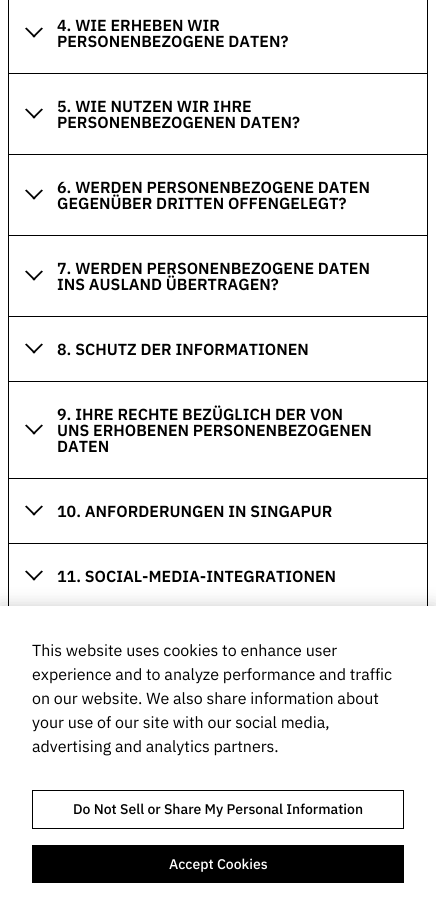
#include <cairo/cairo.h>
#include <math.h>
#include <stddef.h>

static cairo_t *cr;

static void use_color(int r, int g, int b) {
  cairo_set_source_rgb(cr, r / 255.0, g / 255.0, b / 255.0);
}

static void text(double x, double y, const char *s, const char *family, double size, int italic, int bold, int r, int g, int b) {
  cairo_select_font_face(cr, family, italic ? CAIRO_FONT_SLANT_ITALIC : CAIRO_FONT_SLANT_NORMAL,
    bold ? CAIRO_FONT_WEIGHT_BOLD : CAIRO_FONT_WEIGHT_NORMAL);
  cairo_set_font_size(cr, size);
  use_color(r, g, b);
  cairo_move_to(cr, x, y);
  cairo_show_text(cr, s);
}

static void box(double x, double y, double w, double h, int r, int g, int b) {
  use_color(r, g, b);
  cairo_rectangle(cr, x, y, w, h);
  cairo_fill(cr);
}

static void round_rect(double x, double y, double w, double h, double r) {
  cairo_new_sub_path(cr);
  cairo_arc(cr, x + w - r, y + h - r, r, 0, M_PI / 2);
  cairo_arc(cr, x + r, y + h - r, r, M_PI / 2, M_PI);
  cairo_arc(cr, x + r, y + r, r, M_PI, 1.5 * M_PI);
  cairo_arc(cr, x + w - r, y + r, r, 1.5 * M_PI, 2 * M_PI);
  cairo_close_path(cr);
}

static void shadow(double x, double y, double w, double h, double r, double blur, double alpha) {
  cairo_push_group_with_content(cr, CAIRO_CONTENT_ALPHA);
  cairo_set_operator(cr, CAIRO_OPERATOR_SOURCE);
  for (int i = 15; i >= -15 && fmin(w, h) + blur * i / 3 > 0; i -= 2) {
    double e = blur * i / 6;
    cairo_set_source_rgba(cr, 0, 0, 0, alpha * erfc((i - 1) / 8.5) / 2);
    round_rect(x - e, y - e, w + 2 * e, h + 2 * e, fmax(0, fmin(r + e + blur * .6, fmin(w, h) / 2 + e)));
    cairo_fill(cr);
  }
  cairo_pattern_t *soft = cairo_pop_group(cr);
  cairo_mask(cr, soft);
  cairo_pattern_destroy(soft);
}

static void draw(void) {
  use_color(255, 255, 255);
  cairo_paint(cr);
  box(427, 0, 1, 73, 0, 0, 0);
  box(8, 0, 1, 73, 0, 0, 0);
  cairo_new_path(cr);
  cairo_move_to(cr, 41.5, 27.5);
  cairo_line_to(cr, 43, 28.5);
  cairo_line_to(cr, 34, 37.5);
  cairo_line_to(cr, 32.5, 36.5);
  cairo_close_path(cr);
  cairo_fill(cr);
  cairo_new_path(cr);
  cairo_move_to(cr, 26.5, 27.5);
  cairo_line_to(cr, 35.5, 36.5);
  cairo_line_to(cr, 34, 37.5);
  cairo_line_to(cr, 25, 28.5);
  cairo_close_path(cr);
  cairo_fill(cr);
  box(8, 73, 420, 1, 0, 0, 0);
  box(427, 73, 1, 81, 0, 0, 0);
  box(8, 73, 1, 81, 0, 0, 0);
  cairo_new_path(cr);
  cairo_move_to(cr, 41.5, 108.5);
  cairo_line_to(cr, 43, 109.5);
  cairo_line_to(cr, 34, 118.5);
  cairo_line_to(cr, 32.5, 117.5);
  cairo_close_path(cr);
  cairo_fill(cr);
  cairo_new_path(cr);
  cairo_move_to(cr, 26.5, 108.5);
  cairo_line_to(cr, 35.5, 117.5);
  cairo_line_to(cr, 34, 118.5);
  cairo_line_to(cr, 25, 109.5);
  cairo_close_path(cr);
  cairo_fill(cr);
  box(8, 154, 420, 1, 0, 0, 0);
  box(427, 154, 1, 81, 0, 0, 0);
  box(8, 154, 1, 81, 0, 0, 0);
  cairo_new_path(cr);
  cairo_move_to(cr, 41.5, 189.5);
  cairo_line_to(cr, 43, 190.5);
  cairo_line_to(cr, 34, 199.5);
  cairo_line_to(cr, 32.5, 198.5);
  cairo_close_path(cr);
  cairo_fill(cr);
  cairo_new_path(cr);
  cairo_move_to(cr, 26.5, 189.5);
  cairo_line_to(cr, 35.5, 198.5);
  cairo_line_to(cr, 34, 199.5);
  cairo_line_to(cr, 25, 190.5);
  cairo_close_path(cr);
  cairo_fill(cr);
  box(8, 235, 420, 1, 0, 0, 0);
  box(427, 235, 1, 81, 0, 0, 0);
  box(8, 235, 1, 81, 0, 0, 0);
  cairo_new_path(cr);
  cairo_move_to(cr, 41.5, 270.5);
  cairo_line_to(cr, 43, 271.5);
  cairo_line_to(cr, 34, 280.5);
  cairo_line_to(cr, 32.5, 279.5);
  cairo_close_path(cr);
  cairo_fill(cr);
  cairo_new_path(cr);
  cairo_move_to(cr, 26.5, 270.5);
  cairo_line_to(cr, 35.5, 279.5);
  cairo_line_to(cr, 34, 280.5);
  cairo_line_to(cr, 25, 271.5);
  cairo_close_path(cr);
  cairo_fill(cr);
  box(8, 316, 420, 1, 0, 0, 0);
  box(427, 316, 1, 65, 0, 0, 0);
  box(8, 316, 1, 65, 0, 0, 0);
  cairo_new_path(cr);
  cairo_move_to(cr, 41.5, 343.5);
  cairo_line_to(cr, 43, 344.5);
  cairo_line_to(cr, 34, 353.5);
  cairo_line_to(cr, 32.5, 352.5);
  cairo_close_path(cr);
  cairo_fill(cr);
  cairo_new_path(cr);
  cairo_move_to(cr, 26.5, 343.5);
  cairo_line_to(cr, 35.5, 352.5);
  cairo_line_to(cr, 34, 353.5);
  cairo_line_to(cr, 25, 344.5);
  cairo_close_path(cr);
  cairo_fill(cr);
  box(8, 381, 420, 1, 0, 0, 0);
  box(427, 381, 1, 97, 0, 0, 0);
  box(8, 381, 1, 97, 0, 0, 0);
  cairo_new_path(cr);
  cairo_move_to(cr, 41.5, 424.5);
  cairo_line_to(cr, 43, 425.5);
  cairo_line_to(cr, 34, 434.5);
  cairo_line_to(cr, 32.5, 433.5);
  cairo_close_path(cr);
  cairo_fill(cr);
  cairo_new_path(cr);
  cairo_move_to(cr, 26.5, 424.5);
  cairo_line_to(cr, 35.5, 433.5);
  cairo_line_to(cr, 34, 434.5);
  cairo_line_to(cr, 25, 425.5);
  cairo_close_path(cr);
  cairo_fill(cr);
  box(8, 478, 420, 1, 0, 0, 0);
  box(427, 478, 1, 65, 0, 0, 0);
  box(8, 478, 1, 65, 0, 0, 0);
  cairo_new_path(cr);
  cairo_move_to(cr, 41.5, 505.5);
  cairo_line_to(cr, 43, 506.5);
  cairo_line_to(cr, 34, 515.5);
  cairo_line_to(cr, 32.5, 514.5);
  cairo_close_path(cr);
  cairo_fill(cr);
  cairo_new_path(cr);
  cairo_move_to(cr, 26.5, 505.5);
  cairo_line_to(cr, 35.5, 514.5);
  cairo_line_to(cr, 34, 515.5);
  cairo_line_to(cr, 25, 506.5);
  cairo_close_path(cr);
  cairo_fill(cr);
  box(8, 543, 420, 1, 0, 0, 0);
  box(427, 543, 1, 65, 0, 0, 0);
  box(8, 543, 1, 65, 0, 0, 0);
  cairo_new_path(cr);
  cairo_move_to(cr, 41.5, 570.5);
  cairo_line_to(cr, 43, 571.5);
  cairo_line_to(cr, 34, 580.5);
  cairo_line_to(cr, 32.5, 579.5);
  cairo_close_path(cr);
  cairo_fill(cr);
  cairo_new_path(cr);
  cairo_move_to(cr, 26.5, 570.5);
  cairo_line_to(cr, 35.5, 579.5);
  cairo_line_to(cr, 34, 580.5);
  cairo_line_to(cr, 25, 571.5);
  cairo_close_path(cr);
  cairo_fill(cr);
  use_color(0, 0, 0);
  shadow(0, 606, 436, 309, 0, 9, 0.2);
  box(0, 606, 436, 309, 255, 255, 255);
  cairo_rectangle(cr, 32.5, 790.5, 371, 38);
  use_color(0, 0, 0);
  cairo_set_line_width(cr, 1);
  cairo_stroke(cr);
  box(32, 845, 372, 38, 0, 0, 0);
  text(57, 31, "4. WIE ERHEBEN WIR", "IBM Plex Sans SemiBold", 16, 0, 0, 0, 0, 0);
  text(57, 47, "PERSONENBEZOGENE DATEN?", "IBM Plex Sans SemiBold", 16, 0, 0, 0, 0, 0);
  text(57, 112, "5. WIE NUTZEN WIR IHRE", "IBM Plex Sans SemiBold", 16, 0, 0, 0, 0, 0);
  text(57, 128, "PERSONENBEZOGENEN DATEN?", "IBM Plex Sans SemiBold", 16, 0, 0, 0, 0, 0);
  text(57, 193, "6. WERDEN PERSONENBEZOGENE DATEN", "IBM Plex Sans SemiBold", 16, 0, 0, 0, 0, 0);
  text(57, 209, "GEGENÜBER DRITTEN OFFENGELEGT?", "IBM Plex Sans SemiBold", 16, 0, 0, 0, 0, 0);
  text(57, 274, "7. WERDEN PERSONENBEZOGENE DATEN", "IBM Plex Sans SemiBold", 16, 0, 0, 0, 0, 0);
  text(57, 290, "INS AUSLAND ÜBERTRAGEN?", "IBM Plex Sans SemiBold", 16, 0, 0, 0, 0, 0);
  text(57, 355, "8. SCHUTZ DER INFORMATIONEN", "IBM Plex Sans SemiBold", 16, 0, 0, 0, 0, 0);
  text(57, 420, "9. IHRE RECHTE BEZÜGLICH DER VON", "IBM Plex Sans SemiBold", 16, 0, 0, 0, 0, 0);
  text(57, 436, "UNS ERHOBENEN PERSONENBEZOGENEN", "IBM Plex Sans SemiBold", 16, 0, 0, 0, 0, 0);
  text(57, 452, "DATEN", "IBM Plex Sans SemiBold", 16, 0, 0, 0, 0, 0);
  text(57, 517, "10. ANFORDERUNGEN IN SINGAPUR", "IBM Plex Sans SemiBold", 16, 0, 0, 0, 0, 0);
  text(57, 582, "11. SOCIAL-MEDIA-INTEGRATIONEN", "IBM Plex Sans SemiBold", 16, 0, 0, 0, 0, 0);
  text(32, 656, "This website uses cookies to enhance user", "IBM Plex Sans", 16, 0, 0, 0, 0, 0);
  text(32, 680, "experience and to analyze performance and traffic", "IBM Plex Sans", 16, 0, 0, 0, 0, 0);
  text(32, 704, "on our website. We also share information about", "IBM Plex Sans", 16, 0, 0, 0, 0, 0);
  text(32, 728, "your use of our site with our social media,", "IBM Plex Sans", 16, 0, 0, 0, 0, 0);
  text(32, 752, "advertising and analytics partners.", "IBM Plex Sans", 16, 0, 0, 0, 0, 0);
  text(73, 814, "Do Not Sell or Share My Personal Information", "IBM Plex Sans Medium", 14, 0, 0, 0, 0, 0);
  text(169, 869, "Accept Cookies", "IBM Plex Sans Medium", 14, 0, 0, 255, 255, 255);
}

int main(void) {
  cairo_surface_t *surface = cairo_image_surface_create(CAIRO_FORMAT_RGB24, 436, 915);
  cr = cairo_create(surface);
  cairo_font_options_t *options = cairo_font_options_create();
  cairo_font_options_set_hint_metrics(options, CAIRO_HINT_METRICS_OFF);
  cairo_font_options_set_hint_style(options, CAIRO_HINT_STYLE_NONE);
  cairo_set_font_options(cr, options);
  cairo_set_miter_limit(cr, 4);
  draw();
  cairo_surface_write_to_png(surface, "out.png");
  cairo_font_options_destroy(options);
  cairo_destroy(cr);
  cairo_surface_destroy(surface);
  return 0;
}
